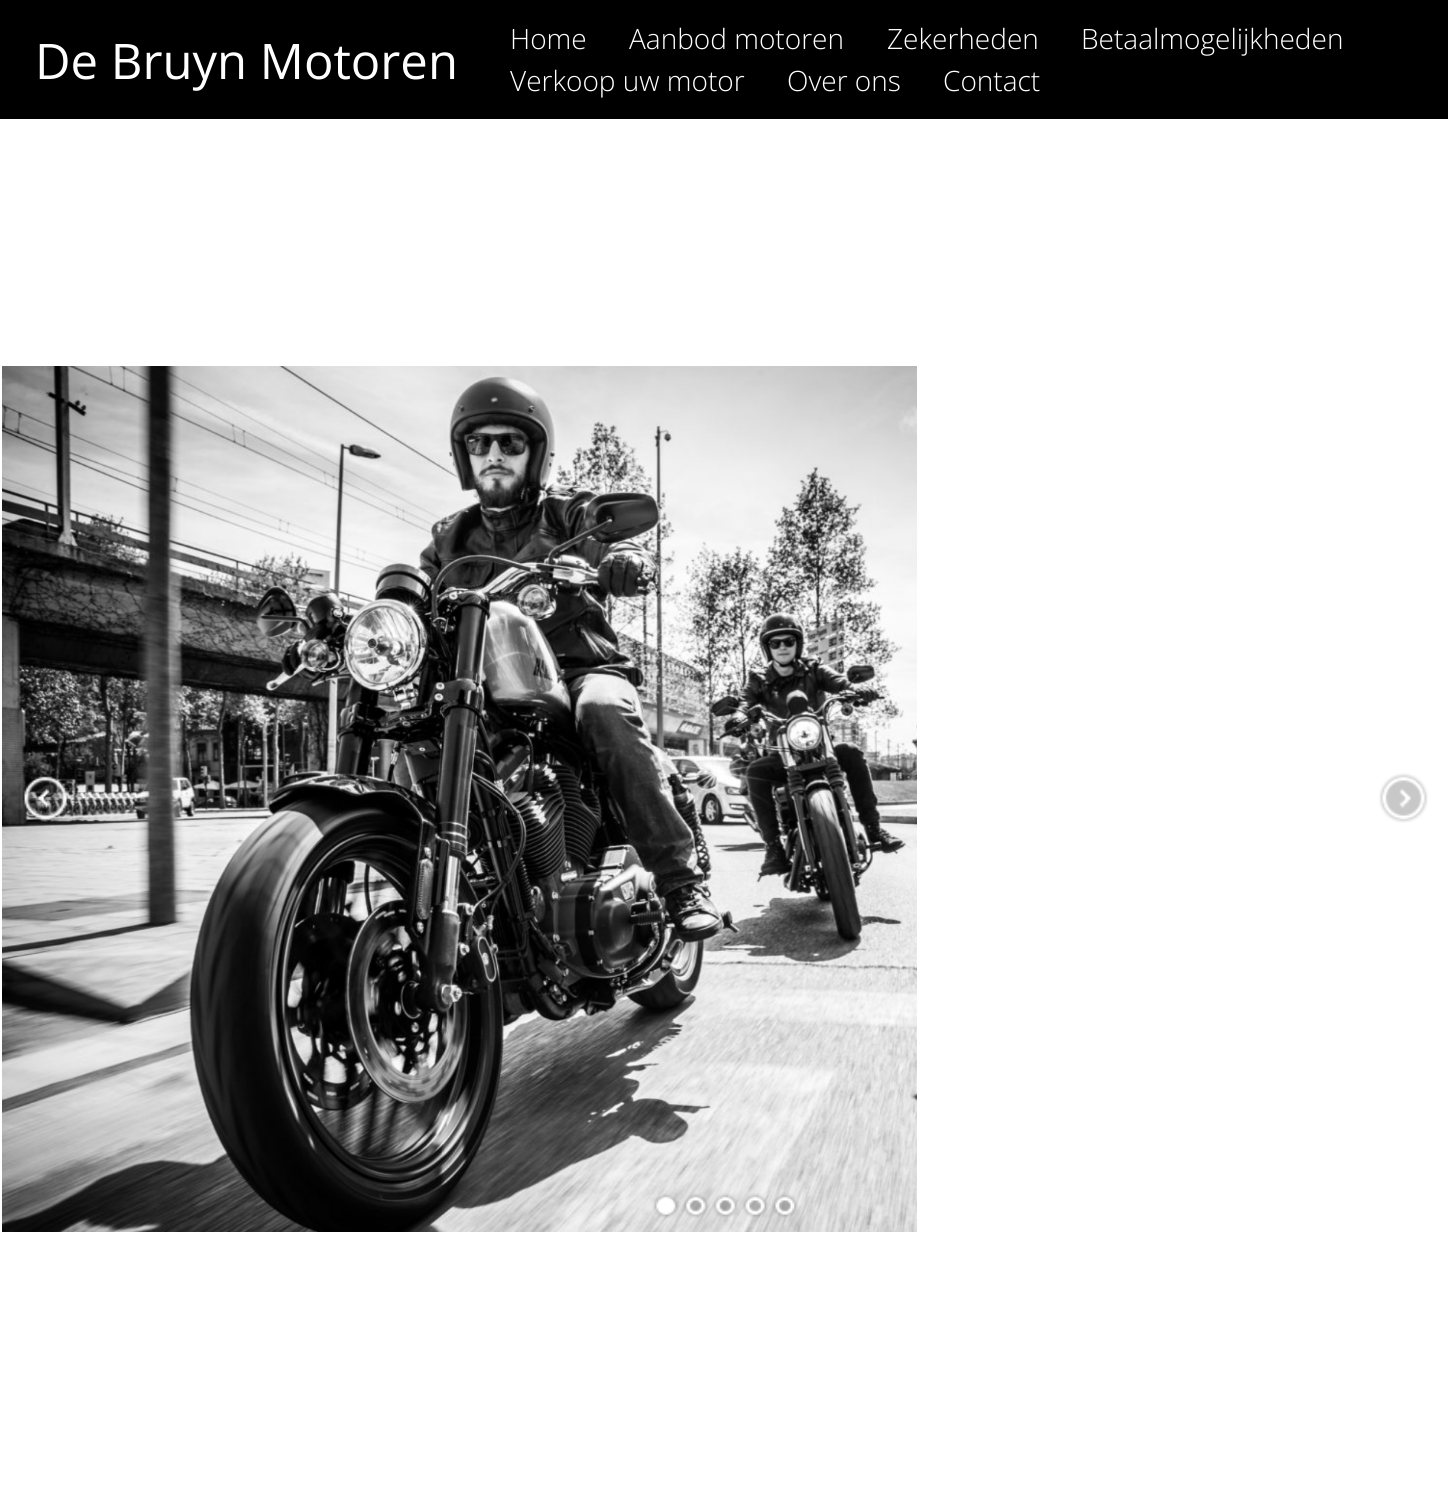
#include <cairo/cairo.h>
#include <math.h>
#include <stddef.h>

static cairo_t *cr;

static void use_color(int r, int g, int b) {
  cairo_set_source_rgb(cr, r / 255.0, g / 255.0, b / 255.0);
}

static void text(double x, double y, const char *s, const char *family, double size, int italic, int bold, int r, int g, int b) {
  cairo_select_font_face(cr, family, italic ? CAIRO_FONT_SLANT_ITALIC : CAIRO_FONT_SLANT_NORMAL,
    bold ? CAIRO_FONT_WEIGHT_BOLD : CAIRO_FONT_WEIGHT_NORMAL);
  cairo_set_font_size(cr, size);
  use_color(r, g, b);
  cairo_move_to(cr, x, y);
  cairo_show_text(cr, s);
}

static void box(double x, double y, double w, double h, int r, int g, int b) {
  use_color(r, g, b);
  cairo_rectangle(cr, x, y, w, h);
  cairo_fill(cr);
}

static void picture(const char *path, double x, double y, double w, double h) {
  cairo_surface_t *image = cairo_image_surface_create_from_png(path);
  cairo_save(cr);
  cairo_set_source_surface(cr, image, x, y);
  cairo_rectangle(cr, x, y, w, h);
  cairo_fill(cr);
  cairo_restore(cr);
  cairo_surface_destroy(image);
}

static void draw(void) {
  use_color(0, 0, 0);
  cairo_paint(cr);
  box(0, 119, 1448, 1380, 255, 255, 255);
  picture("img_01.png", 2, 366, 915, 866);
  picture("img_02.png", 22, 775, 48, 46);
  picture("img_03.png", 1379, 773, 49, 50);
  picture("img_04.png", 653, 1193, 26, 25);
  picture("img_05.png", 682, 1193, 27, 25);
  picture("img_06.png", 712, 1193, 27, 25);
  picture("img_07.png", 742, 1193, 26, 25);
  picture("img_08.png", 772, 1193, 26, 25);
  text(35, 79, "De Bruyn Motoren", "Open Sans", 49, 0, 0, 255, 255, 255);
  text(510, 49, "Home", "Open Sans Light", 28, 0, 0, 255, 255, 255);
  text(629, 49, "Aanbod motoren", "Open Sans Light", 28, 0, 0, 255, 255, 255);
  text(887, 49, "Zekerheden", "Open Sans Light", 28, 0, 0, 255, 255, 255);
  text(1081, 49, "Betaalmogelijkheden", "Open Sans Light", 28, 0, 0, 255, 255, 255);
  text(510, 91, "Verkoop uw motor", "Open Sans Light", 28, 0, 0, 255, 255, 255);
  text(787, 91, "Over ons", "Open Sans Light", 28, 0, 0, 255, 255, 255);
  text(943, 91, "Contact", "Open Sans Light", 28, 0, 0, 255, 255, 255);
}

int main(void) {
  cairo_surface_t *surface = cairo_image_surface_create(CAIRO_FORMAT_RGB24, 1448, 1499);
  cr = cairo_create(surface);
  cairo_font_options_t *options = cairo_font_options_create();
  cairo_font_options_set_hint_metrics(options, CAIRO_HINT_METRICS_OFF);
  cairo_font_options_set_hint_style(options, CAIRO_HINT_STYLE_NONE);
  cairo_set_font_options(cr, options);
  cairo_set_miter_limit(cr, 4);
  draw();
  cairo_surface_write_to_png(surface, "out.png");
  cairo_font_options_destroy(options);
  cairo_destroy(cr);
  cairo_surface_destroy(surface);
  return 0;
}
